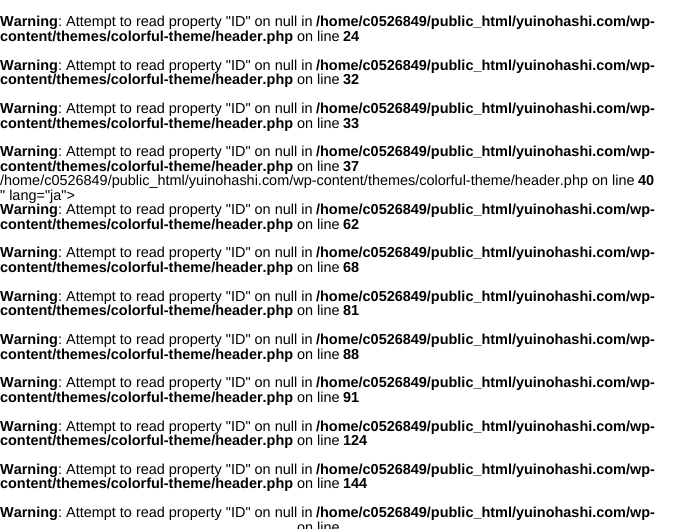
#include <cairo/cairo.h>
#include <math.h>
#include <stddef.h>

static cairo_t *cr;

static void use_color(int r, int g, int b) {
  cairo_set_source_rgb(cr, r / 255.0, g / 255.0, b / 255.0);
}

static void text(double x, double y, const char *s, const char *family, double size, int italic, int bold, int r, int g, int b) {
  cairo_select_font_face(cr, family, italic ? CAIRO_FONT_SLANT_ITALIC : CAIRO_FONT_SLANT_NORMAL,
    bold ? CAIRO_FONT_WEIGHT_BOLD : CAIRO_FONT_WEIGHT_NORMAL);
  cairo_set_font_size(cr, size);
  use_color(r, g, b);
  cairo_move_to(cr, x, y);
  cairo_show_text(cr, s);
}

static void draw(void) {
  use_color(255, 255, 255);
  cairo_paint(cr);
  text(0, 26, "Warning", "Liberation Sans", 14.45, 0, 1, 0, 0, 0);
  text(58, 26, ": Attempt to read property \"ID\" on null in", "Liberation Sans", 14.45, 0, 0, 0, 0, 0);
  text(316, 26, "/home/c0526849/public_html/yuinohashi.com/wp-", "Liberation Sans", 14.45, 0, 1, 0, 0, 0);
  text(0, 41, "content/themes/colorful-theme/header.php", "Liberation Sans", 14.45, 0, 1, 0, 0, 0);
  text(297, 41, "on line", "Liberation Sans", 14.45, 0, 0, 0, 0, 0);
  text(343, 41, "24", "Liberation Sans", 14.45, 0, 1, 0, 0, 0);
  text(0, 70, "Warning", "Liberation Sans", 14.45, 0, 1, 0, 0, 0);
  text(58, 70, ": Attempt to read property \"ID\" on null in", "Liberation Sans", 14.45, 0, 0, 0, 0, 0);
  text(316, 70, "/home/c0526849/public_html/yuinohashi.com/wp-", "Liberation Sans", 14.45, 0, 1, 0, 0, 0);
  text(0, 84, "content/themes/colorful-theme/header.php", "Liberation Sans", 14.45, 0, 1, 0, 0, 0);
  text(297, 84, "on line", "Liberation Sans", 14.45, 0, 0, 0, 0, 0);
  text(343, 84, "32", "Liberation Sans", 14.45, 0, 1, 0, 0, 0);
  text(0, 113, "Warning", "Liberation Sans", 14.45, 0, 1, 0, 0, 0);
  text(58, 113, ": Attempt to read property \"ID\" on null in", "Liberation Sans", 14.45, 0, 0, 0, 0, 0);
  text(316, 113, "/home/c0526849/public_html/yuinohashi.com/wp-", "Liberation Sans", 14.45, 0, 1, 0, 0, 0);
  text(0, 128, "content/themes/colorful-theme/header.php", "Liberation Sans", 14.45, 0, 1, 0, 0, 0);
  text(297, 128, "on line", "Liberation Sans", 14.45, 0, 0, 0, 0, 0);
  text(343, 128, "33", "Liberation Sans", 14.45, 0, 1, 0, 0, 0);
  text(0, 156, "Warning", "Liberation Sans", 14.45, 0, 1, 0, 0, 0);
  text(58, 156, ": Attempt to read property \"ID\" on null in", "Liberation Sans", 14.45, 0, 0, 0, 0, 0);
  text(316, 156, "/home/c0526849/public_html/yuinohashi.com/wp-", "Liberation Sans", 14.45, 0, 1, 0, 0, 0);
  text(0, 171, "content/themes/colorful-theme/header.php", "Liberation Sans", 14.45, 0, 1, 0, 0, 0);
  text(297, 171, "on line", "Liberation Sans", 14.45, 0, 0, 0, 0, 0);
  text(343, 171, "37", "Liberation Sans", 14.45, 0, 1, 0, 0, 0);
  text(0, 185, "/home/c0526849/public_html/yuinohashi.com/wp-content/themes/colorful-theme/header.php on line", "Liberation Sans", 14.45, 0, 0, 0, 0, 0);
  text(638, 185, "40", "Liberation Sans", 14.45, 0, 1, 0, 0, 0);
  text(0, 200, "\" lang=\"ja\">", "Liberation Sans", 14.45, 0, 0, 0, 0, 0);
  text(0, 214, "Warning", "Liberation Sans", 14.45, 0, 1, 0, 0, 0);
  text(58, 214, ": Attempt to read property \"ID\" on null in", "Liberation Sans", 14.45, 0, 0, 0, 0, 0);
  text(316, 214, "/home/c0526849/public_html/yuinohashi.com/wp-", "Liberation Sans", 14.45, 0, 1, 0, 0, 0);
  text(0, 229, "content/themes/colorful-theme/header.php", "Liberation Sans", 14.45, 0, 1, 0, 0, 0);
  text(297, 229, "on line", "Liberation Sans", 14.45, 0, 0, 0, 0, 0);
  text(343, 229, "62", "Liberation Sans", 14.45, 0, 1, 0, 0, 0);
  text(0, 257, "Warning", "Liberation Sans", 14.45, 0, 1, 0, 0, 0);
  text(58, 257, ": Attempt to read property \"ID\" on null in", "Liberation Sans", 14.45, 0, 0, 0, 0, 0);
  text(316, 257, "/home/c0526849/public_html/yuinohashi.com/wp-", "Liberation Sans", 14.45, 0, 1, 0, 0, 0);
  text(0, 272, "content/themes/colorful-theme/header.php", "Liberation Sans", 14.45, 0, 1, 0, 0, 0);
  text(297, 272, "on line", "Liberation Sans", 14.45, 0, 0, 0, 0, 0);
  text(343, 272, "68", "Liberation Sans", 14.45, 0, 1, 0, 0, 0);
  text(0, 301, "Warning", "Liberation Sans", 14.45, 0, 1, 0, 0, 0);
  text(58, 301, ": Attempt to read property \"ID\" on null in", "Liberation Sans", 14.45, 0, 0, 0, 0, 0);
  text(316, 301, "/home/c0526849/public_html/yuinohashi.com/wp-", "Liberation Sans", 14.45, 0, 1, 0, 0, 0);
  text(0, 315, "content/themes/colorful-theme/header.php", "Liberation Sans", 14.45, 0, 1, 0, 0, 0);
  text(297, 315, "on line", "Liberation Sans", 14.45, 0, 0, 0, 0, 0);
  text(343, 315, "81", "Liberation Sans", 14.45, 0, 1, 0, 0, 0);
  text(0, 344, "Warning", "Liberation Sans", 14.45, 0, 1, 0, 0, 0);
  text(58, 344, ": Attempt to read property \"ID\" on null in", "Liberation Sans", 14.45, 0, 0, 0, 0, 0);
  text(316, 344, "/home/c0526849/public_html/yuinohashi.com/wp-", "Liberation Sans", 14.45, 0, 1, 0, 0, 0);
  text(0, 359, "content/themes/colorful-theme/header.php", "Liberation Sans", 14.45, 0, 1, 0, 0, 0);
  text(297, 359, "on line", "Liberation Sans", 14.45, 0, 0, 0, 0, 0);
  text(343, 359, "88", "Liberation Sans", 14.45, 0, 1, 0, 0, 0);
  text(0, 387, "Warning", "Liberation Sans", 14.45, 0, 1, 0, 0, 0);
  text(58, 387, ": Attempt to read property \"ID\" on null in", "Liberation Sans", 14.45, 0, 0, 0, 0, 0);
  text(316, 387, "/home/c0526849/public_html/yuinohashi.com/wp-", "Liberation Sans", 14.45, 0, 1, 0, 0, 0);
  text(0, 402, "content/themes/colorful-theme/header.php", "Liberation Sans", 14.45, 0, 1, 0, 0, 0);
  text(297, 402, "on line", "Liberation Sans", 14.45, 0, 0, 0, 0, 0);
  text(343, 402, "91", "Liberation Sans", 14.45, 0, 1, 0, 0, 0);
  text(0, 431, "Warning", "Liberation Sans", 14.45, 0, 1, 0, 0, 0);
  text(58, 431, ": Attempt to read property \"ID\" on null in", "Liberation Sans", 14.45, 0, 0, 0, 0, 0);
  text(316, 431, "/home/c0526849/public_html/yuinohashi.com/wp-", "Liberation Sans", 14.45, 0, 1, 0, 0, 0);
  text(0, 445, "content/themes/colorful-theme/header.php", "Liberation Sans", 14.45, 0, 1, 0, 0, 0);
  text(297, 445, "on line", "Liberation Sans", 14.45, 0, 0, 0, 0, 0);
  text(343, 445, "124", "Liberation Sans", 14.45, 0, 1, 0, 0, 0);
  text(0, 474, "Warning", "Liberation Sans", 14.45, 0, 1, 0, 0, 0);
  text(58, 474, ": Attempt to read property \"ID\" on null in", "Liberation Sans", 14.45, 0, 0, 0, 0, 0);
  text(316, 474, "/home/c0526849/public_html/yuinohashi.com/wp-", "Liberation Sans", 14.45, 0, 1, 0, 0, 0);
  text(0, 488, "content/themes/colorful-theme/header.php", "Liberation Sans", 14.45, 0, 1, 0, 0, 0);
  text(297, 488, "on line", "Liberation Sans", 14.45, 0, 0, 0, 0, 0);
  text(343, 488, "144", "Liberation Sans", 14.45, 0, 1, 0, 0, 0);
  text(0, 517, "Warning", "Liberation Sans", 14.45, 0, 1, 0, 0, 0);
  text(58, 517, ": Attempt to read property \"ID\" on null in", "Liberation Sans", 14.45, 0, 0, 0, 0, 0);
  text(316, 517, "/home/c0526849/public_html/yuinohashi.com/wp-", "Liberation Sans", 14.45, 0, 1, 0, 0, 0);
  text(297, 532, "on line", "Liberation Sans", 14.45, 0, 0, 0, 0, 0);
}

int main(void) {
  cairo_surface_t *surface = cairo_image_surface_create(CAIRO_FORMAT_RGB24, 699, 529);
  cr = cairo_create(surface);
  cairo_font_options_t *options = cairo_font_options_create();
  cairo_font_options_set_hint_metrics(options, CAIRO_HINT_METRICS_OFF);
  cairo_font_options_set_hint_style(options, CAIRO_HINT_STYLE_NONE);
  cairo_set_font_options(cr, options);
  cairo_set_miter_limit(cr, 4);
  draw();
  cairo_surface_write_to_png(surface, "out.png");
  cairo_font_options_destroy(options);
  cairo_destroy(cr);
  cairo_surface_destroy(surface);
  return 0;
}
